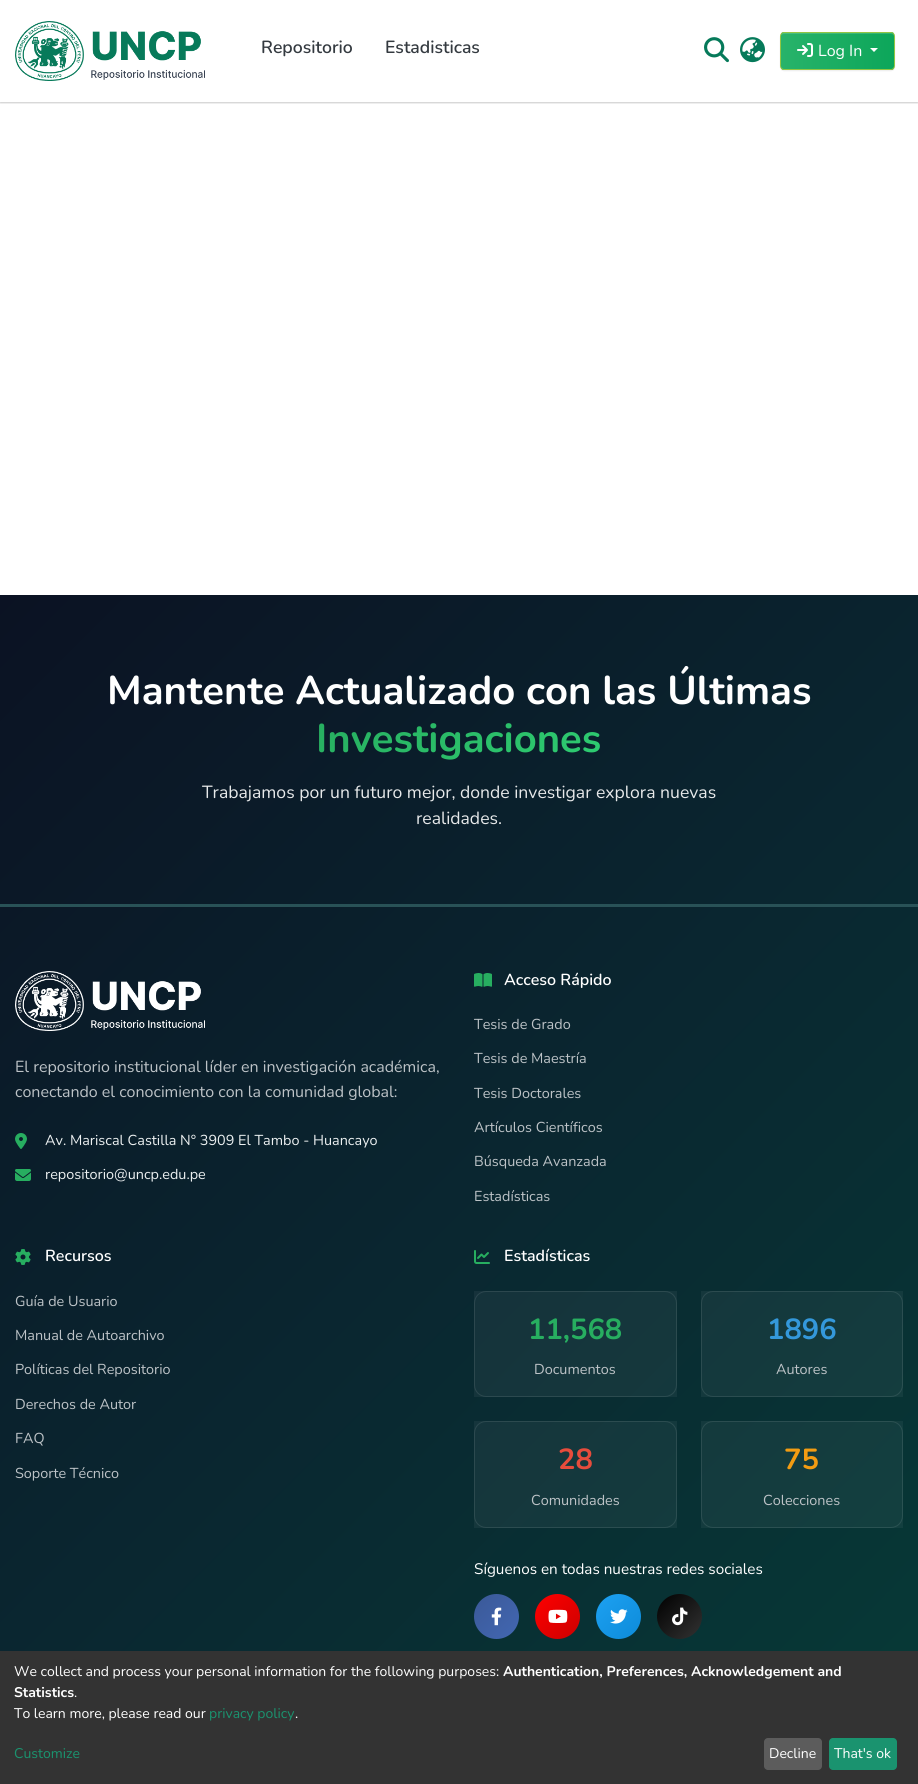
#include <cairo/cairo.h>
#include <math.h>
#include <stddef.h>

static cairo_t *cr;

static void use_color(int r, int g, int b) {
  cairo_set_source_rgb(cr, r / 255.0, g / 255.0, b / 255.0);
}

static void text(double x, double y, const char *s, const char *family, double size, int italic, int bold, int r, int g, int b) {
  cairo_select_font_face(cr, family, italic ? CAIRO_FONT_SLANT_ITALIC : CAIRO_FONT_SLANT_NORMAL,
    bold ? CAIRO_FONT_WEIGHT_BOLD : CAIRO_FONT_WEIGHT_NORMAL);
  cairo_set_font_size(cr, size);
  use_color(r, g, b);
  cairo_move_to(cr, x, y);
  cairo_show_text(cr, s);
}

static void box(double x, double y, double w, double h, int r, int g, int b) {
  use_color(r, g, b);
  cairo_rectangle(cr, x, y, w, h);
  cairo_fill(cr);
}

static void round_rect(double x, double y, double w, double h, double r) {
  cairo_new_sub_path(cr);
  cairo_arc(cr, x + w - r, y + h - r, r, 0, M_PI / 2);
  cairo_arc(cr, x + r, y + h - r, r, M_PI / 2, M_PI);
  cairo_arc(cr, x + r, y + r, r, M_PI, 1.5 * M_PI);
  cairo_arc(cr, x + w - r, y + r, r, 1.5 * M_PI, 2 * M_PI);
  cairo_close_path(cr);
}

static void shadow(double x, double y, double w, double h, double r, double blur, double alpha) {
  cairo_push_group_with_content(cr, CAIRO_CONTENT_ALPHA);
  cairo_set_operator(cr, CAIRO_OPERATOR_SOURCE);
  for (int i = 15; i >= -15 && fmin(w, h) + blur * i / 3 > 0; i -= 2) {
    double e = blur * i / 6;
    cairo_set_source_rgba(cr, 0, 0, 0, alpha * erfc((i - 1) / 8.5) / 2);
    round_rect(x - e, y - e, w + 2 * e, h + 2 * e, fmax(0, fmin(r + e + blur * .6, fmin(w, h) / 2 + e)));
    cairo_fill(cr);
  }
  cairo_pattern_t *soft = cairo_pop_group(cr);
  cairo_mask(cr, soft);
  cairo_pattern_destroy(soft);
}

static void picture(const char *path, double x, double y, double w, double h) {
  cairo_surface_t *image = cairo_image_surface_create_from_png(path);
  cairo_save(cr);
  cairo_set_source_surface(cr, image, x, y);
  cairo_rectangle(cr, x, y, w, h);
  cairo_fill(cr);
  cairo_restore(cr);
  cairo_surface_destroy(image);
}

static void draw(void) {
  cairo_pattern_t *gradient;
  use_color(255, 255, 255);
  cairo_paint(cr);
  cairo_save(cr);
  cairo_rectangle(cr, 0, 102, 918, 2);
  cairo_clip(cr);
  use_color(0, 0, 0);
  shadow(0, 0, 918, 102, 0, 1.5, 0.4);
  cairo_restore(cr);
  picture("img_01.png", 15, 21, 190, 60);
  picture("img_02.png", 704, 37, 25, 26);
  picture("img_03.png", 740, 37, 25, 26);
  use_color(0, 0, 0);
  shadow(780, 33, 115, 38, 4, 0.5, 0.07);
  cairo_save(cr);
  round_rect(780, 32, 115, 38, 4);
  cairo_clip(cr);
  gradient = cairo_pattern_create_linear(781, 51, 894, 51);
  cairo_pattern_add_color_stop_rgba(gradient, 0, 0.157, 0.702, 0.416, 1);
  cairo_pattern_add_color_stop_rgba(gradient, 1, 0.047, 0.651, 0.353, 1);
  cairo_set_source(cr, gradient);
  cairo_pattern_destroy(gradient);
  cairo_rectangle(cr, 781, 32, 113, 38);
  cairo_fill(cr);
  cairo_restore(cr);
  cairo_set_source_rgba(cr, 1, 1, 1, 0.15);
  cairo_new_path(cr);
  cairo_move_to(cr, 784, 34);
  cairo_line_to(cr, 891, 34);
  cairo_curve_to(cr, 893, 34, 894, 35, 894, 37);
  cairo_curve_to(cr, 894, 35, 893, 33, 891, 33);
  cairo_line_to(cr, 802, 33);
  cairo_curve_to(cr, 800, 33, 781, 28, 781, 37);
  cairo_curve_to(cr, 781, 35, 782, 34, 784, 34);
  cairo_close_path(cr);
  cairo_fill(cr);
  round_rect(780.5, 32.5, 114, 37, 3.5);
  use_color(146, 198, 66);
  cairo_set_line_width(cr, 1);
  cairo_stroke(cr);
  picture("img_04.png", 797, 43, 16, 14);
  use_color(255, 255, 255);
  cairo_new_path(cr);
  cairo_move_to(cr, 870, 48);
  cairo_line_to(cr, 878, 48);
  cairo_line_to(cr, 874, 52);
  cairo_close_path(cr);
  cairo_fill(cr);
  gradient = cairo_pattern_create_linear(-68, 663, 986, 1716);
  cairo_pattern_add_color_stop_rgba(gradient, 0, 0.043, 0.071, 0.137, 1);
  cairo_pattern_add_color_stop_rgba(gradient, 0.5, 0.039, 0.149, 0.188, 1);
  cairo_pattern_add_color_stop_rgba(gradient, 1, 0.024, 0.231, 0.216, 1);
  cairo_set_source(cr, gradient);
  cairo_pattern_destroy(gradient);
  cairo_rectangle(cr, 0, 595, 918, 1056);
  cairo_fill(cr);
  box(0, 904, 918, 3, 41, 82, 87);
  picture("img_05.png", 15, 971, 190, 60);
  picture("img_06.png", 15, 1133, 12, 16);
  picture("img_07.png", 15, 1169, 16, 12);
  picture("img_08.png", 474, 973, 18, 14);
  picture("img_09.png", 15, 1249, 16, 16);
  picture("img_10.png", 474, 1250, 16, 14);
  cairo_set_source_rgba(cr, 1, 1, 1, 0.05);
  cairo_rectangle(cr, 474, 1291, 203, 106);
  cairo_fill(cr);
  round_rect(474.5, 1291.5, 202, 105, 11.5);
  cairo_set_source_rgba(cr, 1, 1, 1, 0.1);
  cairo_stroke(cr);
  cairo_set_source_rgba(cr, 1, 1, 1, 0.05);
  cairo_rectangle(cr, 701, 1291, 202, 106);
  cairo_fill(cr);
  round_rect(701.5, 1291.5, 201, 105, 11.5);
  cairo_set_source_rgba(cr, 1, 1, 1, 0.1);
  cairo_stroke(cr);
  cairo_set_source_rgba(cr, 1, 1, 1, 0.05);
  cairo_rectangle(cr, 474, 1421, 203, 107);
  cairo_fill(cr);
  round_rect(474.5, 1421.5, 202, 106, 11.5);
  cairo_set_source_rgba(cr, 1, 1, 1, 0.1);
  cairo_stroke(cr);
  cairo_set_source_rgba(cr, 1, 1, 1, 0.05);
  cairo_rectangle(cr, 701, 1421, 202, 107);
  cairo_fill(cr);
  round_rect(701.5, 1421.5, 201, 106, 11.5);
  cairo_set_source_rgba(cr, 1, 1, 1, 0.1);
  cairo_stroke(cr);
  gradient = cairo_pattern_create_linear(474, 1594, 519, 1639);
  cairo_pattern_add_color_stop_rgba(gradient, 0, 0.231, 0.349, 0.596, 1);
  cairo_pattern_add_color_stop_rgba(gradient, 1, 0.259, 0.404, 0.698, 1);
  cairo_set_source(cr, gradient);
  cairo_pattern_destroy(gradient);
  cairo_arc(cr, 496.5, 1616.5, 22.5, 0, 2 * M_PI);
  cairo_fill(cr);
  picture("img_11.png", 491, 1607, 11, 19);
  gradient = cairo_pattern_create_linear(535, 1594, 580, 1639);
  cairo_pattern_add_color_stop_rgba(gradient, 0, 1, 0, 0, 1);
  cairo_pattern_add_color_stop_rgba(gradient, 1, 0.8, 0, 0, 1);
  cairo_set_source(cr, gradient);
  cairo_pattern_destroy(gradient);
  cairo_arc(cr, 557.5, 1616.5, 22.5, 0, 2 * M_PI);
  cairo_fill(cr);
  picture("img_12.png", 548, 1609, 20, 14);
  gradient = cairo_pattern_create_linear(596, 1594, 641, 1639);
  cairo_pattern_add_color_stop_rgba(gradient, 0, 0.114, 0.631, 0.949, 1);
  cairo_pattern_add_color_stop_rgba(gradient, 1, 0.051, 0.545, 0.851, 1);
  cairo_set_source(cr, gradient);
  cairo_pattern_destroy(gradient);
  cairo_arc(cr, 618.5, 1616.5, 22.5, 0, 2 * M_PI);
  cairo_fill(cr);
  picture("img_13.png", 610, 1609, 18, 15);
  gradient = cairo_pattern_create_linear(657, 1594, 702, 1639);
  cairo_pattern_add_color_stop_rgba(gradient, 0, 0, 0, 0, 1);
  cairo_pattern_add_color_stop_rgba(gradient, 1, 0.2, 0.2, 0.2, 1);
  cairo_set_source(cr, gradient);
  cairo_pattern_destroy(gradient);
  cairo_arc(cr, 679.5, 1616.5, 22.5, 0, 2 * M_PI);
  cairo_fill(cr);
  picture("img_14.png", 672, 1607, 16, 19);
  box(0, 1651, 918, 133, 51, 51, 51);
  use_color(92, 92, 92);
  round_rect(764, 1738, 58, 32, 4);
  cairo_fill(cr);
  use_color(26, 147, 111);
  round_rect(829, 1738, 68, 32, 4);
  cairo_fill(cr);
  text(261, 53, "Repositorio", "Nunito SemiBold", 17.6, 0, 0, 52, 58, 64);
  text(385, 53, "Estadisticas", "Nunito SemiBold", 17.6, 0, 0, 52, 58, 64);
  text(818, 56, "Log In", "Nunito", 16, 0, 0, 255, 255, 255);
  text(107, 704, "Mantente Actualizado con las Últimas", "Nunito", 40, 0, 1, 255, 255, 255);
  gradient = cairo_pattern_create_linear(374, 654, 544, 824);
  cairo_pattern_add_color_stop_rgba(gradient, 0, 0.153, 0.682, 0.376, 1);
  cairo_pattern_add_color_stop_rgba(gradient, 1, 0.18, 0.8, 0.443, 1);
  cairo_set_source(cr, gradient);
  cairo_pattern_destroy(gradient);
  cairo_move_to(cr, 316, 752);
  cairo_show_text(cr, "Investigaciones");
  text(202, 798, "Trabajamos por un futuro mejor, donde investigar explora nuevas", "Nunito", 17.6, 0, 0, 231, 233, 234);
  text(416, 824, "realidades.", "Nunito", 17.6, 0, 0, 231, 233, 234);
  text(15, 1072, "El repositorio institucional líder en investigación académica,", "Nunito", 16, 0, 0, 189, 195, 199);
  text(15, 1097, "conectando el conocimiento con la comunidad global:", "Nunito", 16, 0, 0, 189, 195, 199);
  text(45, 1145, "Av. Mariscal Castilla N° 3909 El Tambo - Huancayo", "Nunito", 14.4, 0, 0, 236, 240, 241);
  text(45, 1179, "repositorio@uncp.edu.pe", "Nunito", 14.4, 0, 0, 236, 240, 241);
  text(504, 985, "Acceso Rápido", "Nunito SemiBold", 16, 0, 0, 255, 255, 255);
  text(474, 1029, "Tesis de Grado", "Nunito", 14.4, 0, 0, 189, 195, 199);
  text(474, 1063, "Tesis de Maestría", "Nunito", 14.4, 0, 0, 189, 195, 199);
  text(474, 1098, "Tesis Doctorales", "Nunito", 14.4, 0, 0, 189, 195, 199);
  text(474, 1132, "Artículos Científicos", "Nunito", 14.4, 0, 0, 189, 195, 199);
  text(474, 1166, "Búsqueda Avanzada", "Nunito", 14.4, 0, 0, 189, 195, 199);
  text(474, 1201, "Estadísticas", "Nunito", 14.4, 0, 0, 189, 195, 199);
  text(45, 1261, "Recursos", "Nunito SemiBold", 16, 0, 0, 255, 255, 255);
  text(15, 1306, "Guía de Usuario", "Nunito", 14.4, 0, 0, 189, 195, 199);
  text(15, 1340, "Manual de Autoarchivo", "Nunito", 14.4, 0, 0, 189, 195, 199);
  text(15, 1374, "Políticas del Repositorio", "Nunito", 14.4, 0, 0, 189, 195, 199);
  text(15, 1409, "Derechos de Autor", "Nunito", 14.4, 0, 0, 189, 195, 199);
  text(15, 1443, "FAQ", "Nunito", 14.4, 0, 0, 189, 195, 199);
  text(15, 1478, "Soporte Técnico", "Nunito", 14.4, 0, 0, 189, 195, 199);
  text(504, 1261, "Estadísticas", "Nunito SemiBold", 16, 0, 0, 255, 255, 255);
  text(528, 1339, "11,568", "Nunito", 29, 0, 1, 39, 174, 96);
  text(534, 1374, "Documentos", "Nunito", 14.4, 0, 0, 189, 195, 199);
  text(767, 1339, "1896", "Nunito", 29, 0, 1, 52, 152, 219);
  text(776, 1374, "Autores", "Nunito", 14.4, 0, 0, 189, 195, 199);
  text(558, 1469, "28", "Nunito", 29, 0, 1, 231, 76, 60);
  text(531, 1505, "Comunidades", "Nunito", 14.4, 0, 0, 189, 195, 199);
  text(784, 1469, "75", "Nunito", 29, 0, 1, 243, 156, 18);
  text(763, 1505, "Colecciones", "Nunito", 14.4, 0, 0, 189, 195, 199);
  text(474, 1574, "Síguenos en todas nuestras redes sociales", "Nunito", 15.25, 0, 0, 255, 255, 255);
  text(14, 1676, "We collect and process your personal information for the following purposes:", "Nunito", 14, 0, 0, 255, 255, 255);
  text(503, 1676, "Authentication, Preferences, Acknowledgement and", "Nunito", 14, 0, 1, 255, 255, 255);
  text(14, 1697, "Statistics", "Nunito", 14, 0, 1, 255, 255, 255);
  text(74, 1697, ".", "Nunito", 14, 0, 0, 255, 255, 255);
  text(14, 1718, "To learn more, please read our", "Nunito", 14, 0, 0, 255, 255, 255);
  text(209, 1718, "privacy policy", "Nunito", 14, 0, 0, 26, 147, 111);
  text(295, 1718, ".", "Nunito", 14, 0, 0, 255, 255, 255);
  text(14, 1758, "Customize", "Nunito", 14, 0, 0, 26, 147, 111);
  text(769, 1758, "Decline", "Nunito", 14, 0, 0, 255, 255, 255);
  text(834, 1758, "That's ok", "Nunito", 14, 0, 0, 255, 255, 255);
}

int main(void) {
  cairo_surface_t *surface = cairo_image_surface_create(CAIRO_FORMAT_RGB24, 918, 1784);
  cr = cairo_create(surface);
  cairo_font_options_t *options = cairo_font_options_create();
  cairo_font_options_set_hint_metrics(options, CAIRO_HINT_METRICS_OFF);
  cairo_font_options_set_hint_style(options, CAIRO_HINT_STYLE_NONE);
  cairo_set_font_options(cr, options);
  cairo_set_miter_limit(cr, 4);
  draw();
  cairo_surface_write_to_png(surface, "out.png");
  cairo_font_options_destroy(options);
  cairo_destroy(cr);
  cairo_surface_destroy(surface);
  return 0;
}
